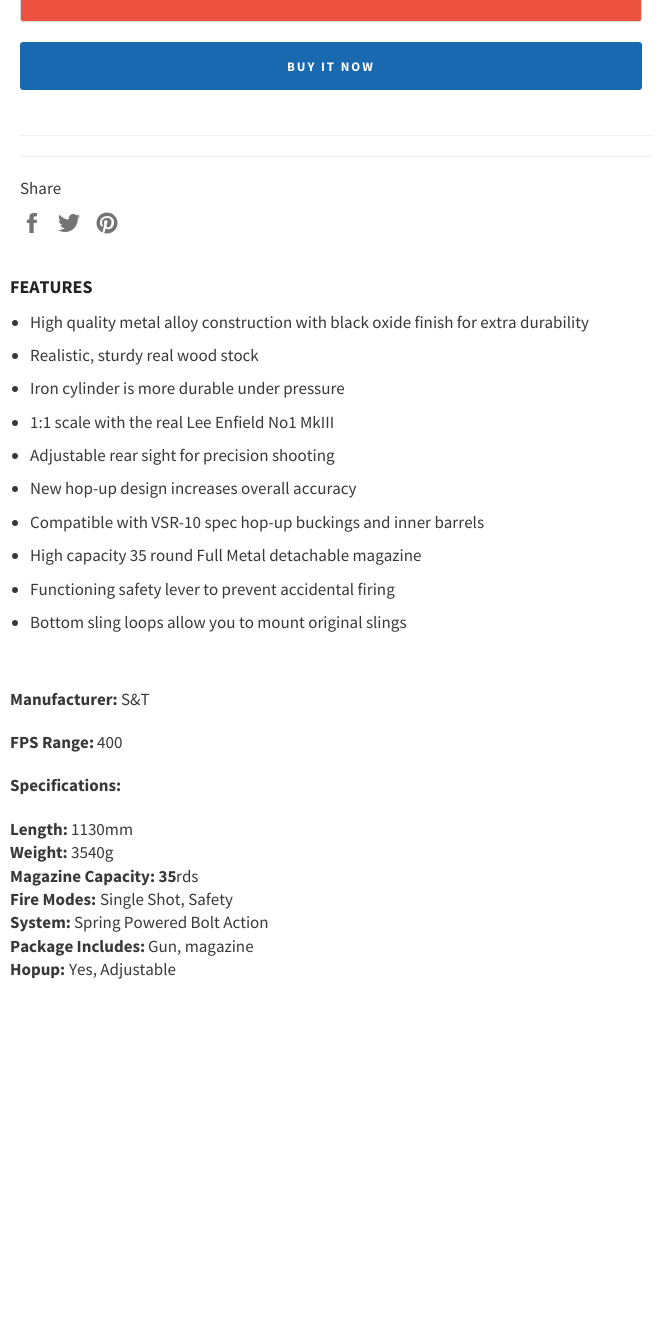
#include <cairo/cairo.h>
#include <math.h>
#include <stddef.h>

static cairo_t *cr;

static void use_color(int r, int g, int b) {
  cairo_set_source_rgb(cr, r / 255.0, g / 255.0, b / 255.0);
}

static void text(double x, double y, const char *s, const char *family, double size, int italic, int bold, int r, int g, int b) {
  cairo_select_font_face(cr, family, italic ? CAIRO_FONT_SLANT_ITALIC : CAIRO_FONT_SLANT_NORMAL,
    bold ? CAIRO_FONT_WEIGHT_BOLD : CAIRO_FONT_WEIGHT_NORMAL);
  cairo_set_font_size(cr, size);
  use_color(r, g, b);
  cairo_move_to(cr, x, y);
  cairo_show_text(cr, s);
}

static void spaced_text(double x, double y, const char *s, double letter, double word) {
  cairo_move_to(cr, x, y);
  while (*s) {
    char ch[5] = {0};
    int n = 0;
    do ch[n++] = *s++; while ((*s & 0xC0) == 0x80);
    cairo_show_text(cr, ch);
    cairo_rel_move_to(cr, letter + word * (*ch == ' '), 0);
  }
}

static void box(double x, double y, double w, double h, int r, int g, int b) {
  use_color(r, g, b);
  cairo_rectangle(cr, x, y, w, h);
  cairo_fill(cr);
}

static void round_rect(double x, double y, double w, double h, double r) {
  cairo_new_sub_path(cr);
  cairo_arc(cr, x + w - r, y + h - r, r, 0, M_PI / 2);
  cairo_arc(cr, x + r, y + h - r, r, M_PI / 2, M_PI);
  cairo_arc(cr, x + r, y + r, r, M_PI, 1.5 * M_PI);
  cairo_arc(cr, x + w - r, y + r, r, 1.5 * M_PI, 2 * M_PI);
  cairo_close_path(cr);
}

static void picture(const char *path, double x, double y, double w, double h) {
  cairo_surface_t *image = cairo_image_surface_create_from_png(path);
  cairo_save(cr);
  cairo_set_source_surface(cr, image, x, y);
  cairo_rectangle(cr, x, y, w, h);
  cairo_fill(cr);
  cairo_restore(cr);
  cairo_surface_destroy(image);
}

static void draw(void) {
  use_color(255, 255, 255);
  cairo_paint(cr);
  use_color(236, 82, 62);
  round_rect(20.5, -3.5, 621, 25, 2.5);
  cairo_fill_preserve(cr);
  use_color(213, 213, 213);
  cairo_set_line_width(cr, 1);
  cairo_stroke(cr);
  use_color(25, 105, 176);
  round_rect(20, 42, 622, 48, 3);
  cairo_fill(cr);
  box(20, 135, 632, 1, 240, 240, 240);
  box(20, 156, 632, 1, 240, 240, 240);
  picture("img_01.png", 27, 213, 10, 20);
  picture("img_02.png", 58, 214, 22, 18);
  picture("img_03.png", 96, 212, 22, 22);
  use_color(56, 56, 56);
  cairo_arc(cr, 15, 323, 3, 0, 2 * M_PI);
  cairo_fill(cr);
  cairo_arc(cr, 15, 356, 3, 0, 2 * M_PI);
  cairo_fill(cr);
  cairo_arc(cr, 15, 389, 3, 0, 2 * M_PI);
  cairo_fill(cr);
  cairo_arc(cr, 15, 423, 3, 0, 2 * M_PI);
  cairo_fill(cr);
  cairo_arc(cr, 15, 456, 3, 0, 2 * M_PI);
  cairo_fill(cr);
  cairo_arc(cr, 15, 489, 3, 0, 2 * M_PI);
  cairo_fill(cr);
  cairo_arc(cr, 15, 523, 3, 0, 2 * M_PI);
  cairo_fill(cr);
  cairo_arc(cr, 15, 556, 3, 0, 2 * M_PI);
  cairo_fill(cr);
  cairo_arc(cr, 15, 590, 3, 0, 2 * M_PI);
  cairo_fill(cr);
  cairo_arc(cr, 15, 623, 3, 0, 2 * M_PI);
  cairo_fill(cr);
  cairo_select_font_face(cr, "Source Sans Pro", CAIRO_FONT_SLANT_NORMAL, CAIRO_FONT_WEIGHT_BOLD);
  cairo_set_font_size(cr, 13);
  use_color(255, 255, 255);
  spaced_text(287, 71, "BUY IT NOW", 2, 0);
  text(20, 194, "Share", "Source Sans Pro", 17, 0, 0, 56, 56, 56);
  text(10, 293, "FEATURES", "Source Sans Pro", 18, 0, 1, 34, 34, 34);
  text(30, 328, "High quality metal alloy construction with black oxide finish for extra durability", "Source Sans Pro", 17, 0, 0, 56, 56, 56);
  text(30, 361, "Realistic, sturdy real wood stock", "Source Sans Pro", 17, 0, 0, 56, 56, 56);
  text(30, 394, "Iron cylinder is more durable under pressure", "Source Sans Pro", 17, 0, 0, 56, 56, 56);
  text(30, 428, "1:1 scale with the real Lee Enfield No1 MkIII", "Source Sans Pro", 17, 0, 0, 56, 56, 56);
  text(30, 461, "Adjustable rear sight for precision shooting", "Source Sans Pro", 17, 0, 0, 56, 56, 56);
  text(30, 494, "New hop-up design increases overall accuracy", "Source Sans Pro", 17, 0, 0, 56, 56, 56);
  text(30, 528, "Compatible with VSR-10 spec hop-up buckings and inner barrels", "Source Sans Pro", 17, 0, 0, 56, 56, 56);
  text(30, 561, "High capacity 35 round Full Metal detachable magazine", "Source Sans Pro", 17, 0, 0, 56, 56, 56);
  text(30, 595, "Functioning safety lever to prevent accidental firing", "Source Sans Pro", 17, 0, 0, 56, 56, 56);
  text(30, 628, "Bottom sling loops allow you to mount original slings", "Source Sans Pro", 17, 0, 0, 56, 56, 56);
  text(10, 705, "Manufacturer:", "Source Sans Pro", 17, 0, 1, 56, 56, 56);
  text(121, 705, "S&T", "Source Sans Pro", 17, 0, 0, 56, 56, 56);
  text(10, 748, "FPS Range:", "Source Sans Pro", 17, 0, 1, 56, 56, 56);
  text(97, 748, "400", "Source Sans Pro", 17, 0, 0, 56, 56, 56);
  text(10, 791, "Specifications:", "Source Sans Pro", 17, 0, 1, 56, 56, 56);
  text(10, 835, "Length:", "Source Sans Pro", 17, 0, 1, 56, 56, 56);
  text(71, 835, "1130mm", "Source Sans Pro", 17, 0, 0, 56, 56, 56);
  text(10, 858, "Weight:", "Source Sans Pro", 17, 0, 1, 56, 56, 56);
  text(71, 858, "3540g", "Source Sans Pro", 17, 0, 0, 56, 56, 56);
  text(10, 882, "Magazine Capacity: 35", "Source Sans Pro", 17, 0, 1, 56, 56, 56);
  text(176, 882, "rds", "Source Sans Pro", 17, 0, 0, 56, 56, 56);
  text(10, 905, "Fire Modes:", "Source Sans Pro", 17, 0, 1, 56, 56, 56);
  text(100, 905, "Single Shot, Safety", "Source Sans Pro", 17, 0, 0, 56, 56, 56);
  text(10, 928, "System:", "Source Sans Pro", 17, 0, 1, 56, 56, 56);
  text(74, 928, "Spring Powered Bolt Action", "Source Sans Pro", 17, 0, 0, 56, 56, 56);
  text(10, 952, "Package Includes:", "Source Sans Pro", 17, 0, 1, 56, 56, 56);
  text(148, 952, "Gun, magazine", "Source Sans Pro", 17, 0, 0, 56, 56, 56);
  text(10, 975, "Hopup:", "Source Sans Pro", 17, 0, 1, 56, 56, 56);
  text(69, 975, "Yes, Adjustable", "Source Sans Pro", 17, 0, 0, 56, 56, 56);
}

int main(void) {
  cairo_surface_t *surface = cairo_image_surface_create(CAIRO_FORMAT_RGB24, 672, 1339);
  cr = cairo_create(surface);
  cairo_font_options_t *options = cairo_font_options_create();
  cairo_font_options_set_hint_metrics(options, CAIRO_HINT_METRICS_OFF);
  cairo_font_options_set_hint_style(options, CAIRO_HINT_STYLE_NONE);
  cairo_set_font_options(cr, options);
  cairo_set_miter_limit(cr, 4);
  draw();
  cairo_surface_write_to_png(surface, "out.png");
  cairo_font_options_destroy(options);
  cairo_destroy(cr);
  cairo_surface_destroy(surface);
  return 0;
}
